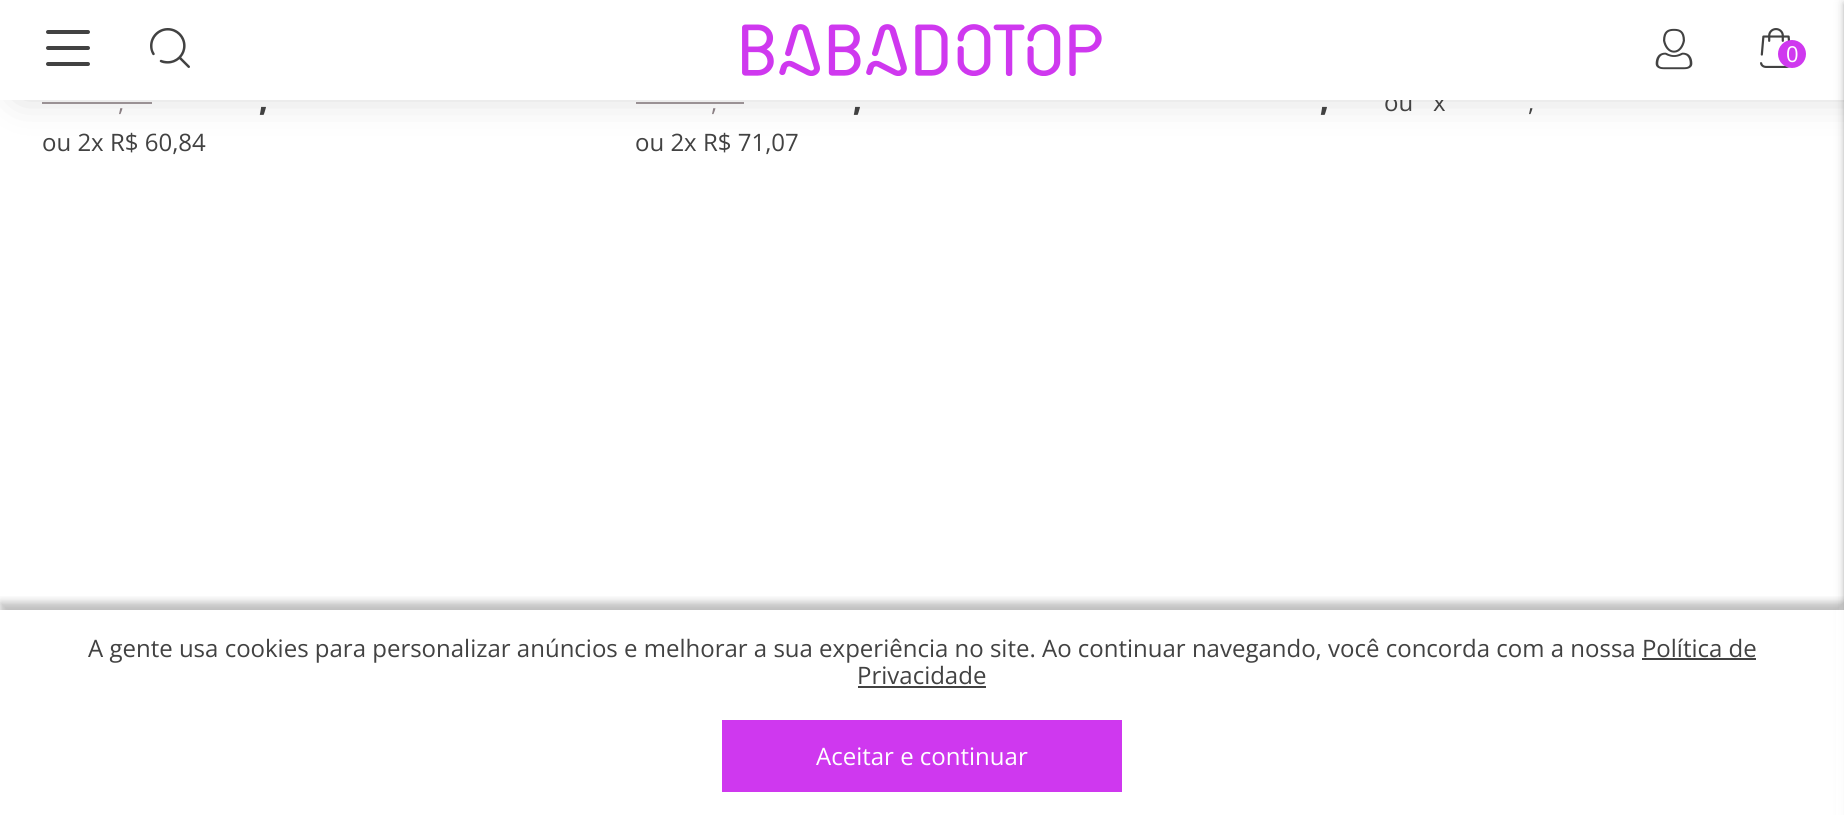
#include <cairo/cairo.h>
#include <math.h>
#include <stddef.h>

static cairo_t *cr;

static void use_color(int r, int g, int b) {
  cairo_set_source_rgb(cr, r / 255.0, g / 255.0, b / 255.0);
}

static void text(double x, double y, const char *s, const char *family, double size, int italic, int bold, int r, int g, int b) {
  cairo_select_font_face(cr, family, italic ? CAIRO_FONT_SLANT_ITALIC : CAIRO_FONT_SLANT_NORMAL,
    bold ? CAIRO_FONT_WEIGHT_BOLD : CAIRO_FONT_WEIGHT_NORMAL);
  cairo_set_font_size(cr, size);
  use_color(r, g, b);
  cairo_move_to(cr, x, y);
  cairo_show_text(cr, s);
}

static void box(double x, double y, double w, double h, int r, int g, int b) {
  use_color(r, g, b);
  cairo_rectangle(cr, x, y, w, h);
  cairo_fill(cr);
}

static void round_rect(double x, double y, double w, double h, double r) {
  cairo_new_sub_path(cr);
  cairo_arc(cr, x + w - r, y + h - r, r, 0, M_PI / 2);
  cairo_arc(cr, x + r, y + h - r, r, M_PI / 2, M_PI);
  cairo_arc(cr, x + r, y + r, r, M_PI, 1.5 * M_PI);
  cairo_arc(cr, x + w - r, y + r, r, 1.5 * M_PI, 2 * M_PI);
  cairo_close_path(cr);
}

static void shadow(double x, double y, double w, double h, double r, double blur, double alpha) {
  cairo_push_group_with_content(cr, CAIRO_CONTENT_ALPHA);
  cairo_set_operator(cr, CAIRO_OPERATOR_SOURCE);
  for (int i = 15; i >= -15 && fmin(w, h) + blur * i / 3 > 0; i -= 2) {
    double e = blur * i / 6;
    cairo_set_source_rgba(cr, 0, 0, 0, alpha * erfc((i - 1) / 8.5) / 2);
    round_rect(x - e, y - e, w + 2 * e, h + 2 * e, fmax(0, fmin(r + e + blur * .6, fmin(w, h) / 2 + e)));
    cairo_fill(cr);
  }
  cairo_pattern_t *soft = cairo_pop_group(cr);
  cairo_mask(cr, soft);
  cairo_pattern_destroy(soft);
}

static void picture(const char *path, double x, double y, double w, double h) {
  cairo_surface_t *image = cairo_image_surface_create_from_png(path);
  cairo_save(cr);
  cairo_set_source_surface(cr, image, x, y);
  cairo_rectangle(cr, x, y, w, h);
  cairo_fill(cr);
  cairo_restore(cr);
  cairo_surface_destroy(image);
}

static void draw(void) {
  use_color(255, 255, 255);
  cairo_paint(cr);
  box(42, 102, 110, 2, 137, 126, 130);
  box(636, 102, 108, 2, 137, 126, 130);
  use_color(204, 204, 204);
  shadow(20, -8, 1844, 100, 0, 20, 1);
  cairo_save(cr);
  cairo_rectangle(cr, 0, 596, 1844, 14);
  cairo_clip(cr);
  use_color(0, 0, 0);
  shadow(0, 602, 1844, 206, 0, 4, 0.25);
  cairo_restore(cr);
  box(1642, 658, 114, 2, 66, 66, 66);
  box(858, 686, 128, 2, 66, 66, 66);
  box(722, 720, 400, 72, 207, 56, 239);
  text(118, 111, ",", "Open Sans", 24, 0, 0, 137, 126, 130);
  text(259, 111, ",", "Open Sans ExtraBold", 28, 0, 0, 66, 66, 66);
  text(42, 151, "ou 2x R$ 60,84", "Open Sans", 24, 0, 0, 66, 66, 66);
  text(711, 111, ",", "Open Sans", 24, 0, 0, 137, 126, 130);
  text(853, 111, ",", "Open Sans ExtraBold", 28, 0, 0, 66, 66, 66);
  text(635, 151, "ou 2x R$ 71,07", "Open Sans", 24, 0, 0, 66, 66, 66);
  text(1320, 111, ",", "Open Sans ExtraBold", 28, 0, 0, 66, 66, 66);
  text(1384, 111, "ou", "Open Sans", 24, 0, 0, 66, 66, 66);
  text(1433, 111, "x", "Open Sans", 24, 0, 0, 66, 66, 66);
  box(0, 0, 1844, 100, 255, 255, 255);
  use_color(0, 0, 0);
  shadow(1844, 4, 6, 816, 0, 2, 0.14);
  shadow(1844, 2, 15, 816, 0, 5, 0.2);
  picture("img_03.png", 742, 24, 360, 52);
  picture("img_05.png", 1760, 28, 31, 40);
  use_color(207, 56, 239);
  cairo_arc(cr, 1792, 54, 14, 0, 2 * M_PI);
  cairo_fill(cr);
  text(1786, 62, "0", "Open Sans", 22, 0, 0, 255, 255, 255);
  picture("img_04.png", 1655, 28, 38, 42);
  picture("img_02.png", 150, 28, 40, 40);
  picture("img_01.png", 46, 30, 44, 36);
  text(1528, 111, ",", "Open Sans", 24, 0, 0, 66, 66, 66);
  cairo_set_source_rgba(cr, 1, 1, 1, 0.9);
  cairo_rectangle(cr, 1836, 610, 8, 205);
  cairo_fill(cr);
  text(88, 657, "A gente usa cookies para personalizar anúncios e melhorar a sua experiência no site. Ao continuar navegando, você concorda com a nossa Política de", "Open Sans", 24, 0, 0, 66, 66, 66);
  text(857, 684, "Privacidade", "Open Sans", 24, 0, 0, 66, 66, 66);
  text(816, 765, "Aceitar e continuar", "Open Sans", 24, 0, 0, 255, 255, 255);
}

int main(void) {
  cairo_surface_t *surface = cairo_image_surface_create(CAIRO_FORMAT_RGB24, 1844, 815);
  cr = cairo_create(surface);
  cairo_font_options_t *options = cairo_font_options_create();
  cairo_font_options_set_hint_metrics(options, CAIRO_HINT_METRICS_OFF);
  cairo_font_options_set_hint_style(options, CAIRO_HINT_STYLE_NONE);
  cairo_set_font_options(cr, options);
  cairo_set_miter_limit(cr, 4);
  draw();
  cairo_surface_write_to_png(surface, "out.png");
  cairo_font_options_destroy(options);
  cairo_destroy(cr);
  cairo_surface_destroy(surface);
  return 0;
}
